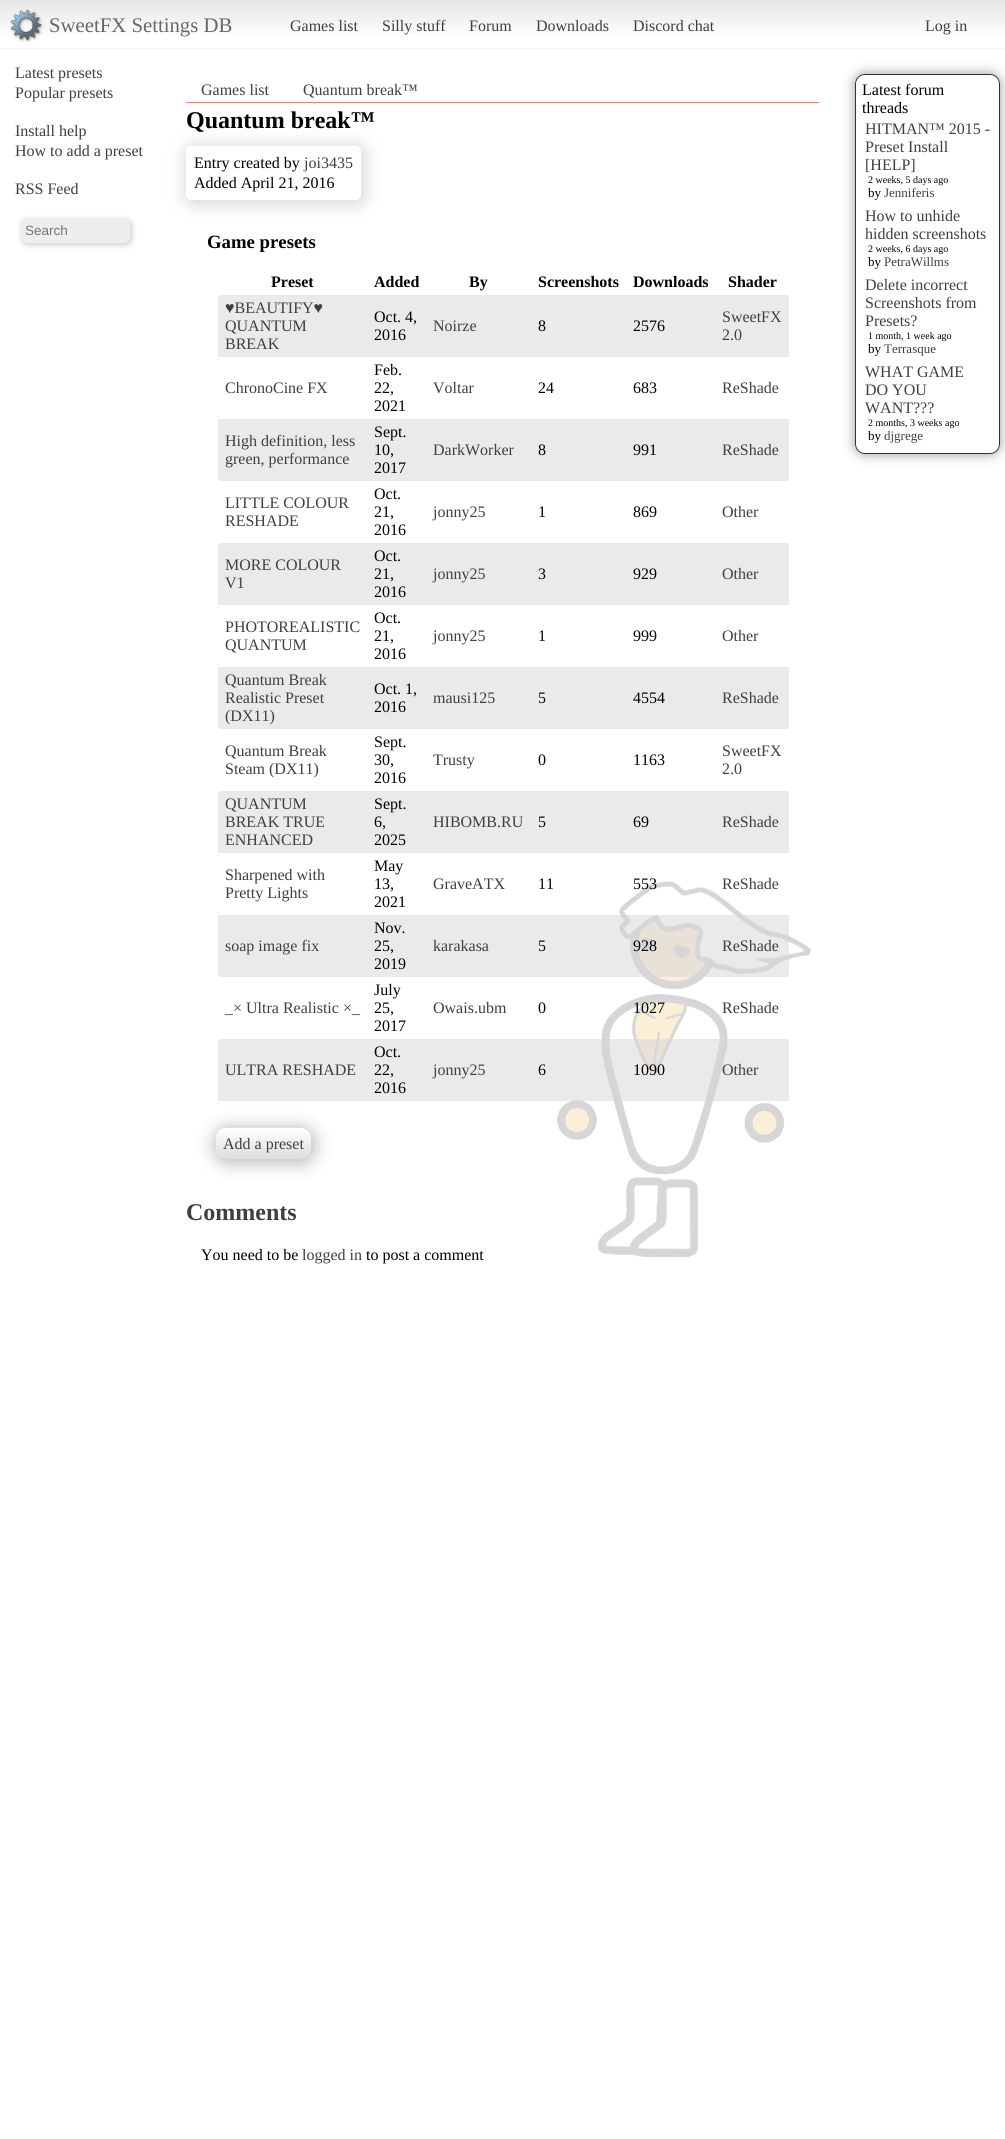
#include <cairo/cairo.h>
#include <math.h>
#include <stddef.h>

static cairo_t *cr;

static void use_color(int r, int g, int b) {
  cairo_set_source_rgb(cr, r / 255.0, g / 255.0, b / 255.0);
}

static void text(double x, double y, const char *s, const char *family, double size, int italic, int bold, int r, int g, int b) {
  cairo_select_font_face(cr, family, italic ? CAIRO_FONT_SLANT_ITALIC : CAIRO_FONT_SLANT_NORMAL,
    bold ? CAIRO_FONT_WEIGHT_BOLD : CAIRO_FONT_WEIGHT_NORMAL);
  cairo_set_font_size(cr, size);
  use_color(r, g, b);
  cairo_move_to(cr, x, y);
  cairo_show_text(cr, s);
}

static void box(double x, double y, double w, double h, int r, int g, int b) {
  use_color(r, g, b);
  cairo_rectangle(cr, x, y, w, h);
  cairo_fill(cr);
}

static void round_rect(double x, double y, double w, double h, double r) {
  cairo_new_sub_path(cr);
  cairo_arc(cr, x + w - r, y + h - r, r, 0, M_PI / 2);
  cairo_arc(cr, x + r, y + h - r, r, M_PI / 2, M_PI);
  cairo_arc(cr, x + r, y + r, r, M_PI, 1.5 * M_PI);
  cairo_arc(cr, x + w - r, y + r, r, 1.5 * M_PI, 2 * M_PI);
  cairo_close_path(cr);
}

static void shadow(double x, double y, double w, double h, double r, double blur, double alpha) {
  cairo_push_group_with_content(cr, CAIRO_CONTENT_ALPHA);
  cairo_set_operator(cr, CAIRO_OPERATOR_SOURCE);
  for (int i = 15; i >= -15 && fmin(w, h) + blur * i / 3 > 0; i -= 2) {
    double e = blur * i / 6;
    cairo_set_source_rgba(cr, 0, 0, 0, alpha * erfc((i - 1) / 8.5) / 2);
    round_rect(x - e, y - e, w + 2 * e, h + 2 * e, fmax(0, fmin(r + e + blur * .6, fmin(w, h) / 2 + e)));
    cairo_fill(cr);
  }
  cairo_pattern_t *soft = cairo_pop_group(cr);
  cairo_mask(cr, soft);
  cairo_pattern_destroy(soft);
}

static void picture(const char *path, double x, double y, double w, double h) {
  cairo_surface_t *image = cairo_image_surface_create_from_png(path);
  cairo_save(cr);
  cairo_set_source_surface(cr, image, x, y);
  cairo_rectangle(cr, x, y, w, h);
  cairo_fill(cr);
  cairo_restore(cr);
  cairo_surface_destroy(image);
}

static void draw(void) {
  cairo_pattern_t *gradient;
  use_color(255, 255, 255);
  cairo_paint(cr);
  picture("img_01.png", 557, 881, 255, 376);
  gradient = cairo_pattern_create_linear(503, 0, 503, 48);
  cairo_pattern_add_color_stop_rgba(gradient, 0, 0.902, 0.902, 0.902, 1);
  cairo_pattern_add_color_stop_rgba(gradient, 0.8, 1, 1, 1, 1);
  cairo_set_source(cr, gradient);
  cairo_pattern_destroy(gradient);
  cairo_rectangle(cr, 0, 0, 1005, 35);
  cairo_fill(cr);
  box(0, 48, 1005, 1, 245, 245, 245);
  picture("img_02.png", 10, 9, 34, 34);
  use_color(50, 50, 50);
  shadow(22, 220, 110, 25, 6, 3, 0.25);
  use_color(238, 238, 238);
  round_rect(20, 218, 110, 25, 6);
  cairo_fill(cr);
  box(186, 102, 633, 1, 240, 128, 106);
  use_color(182, 182, 182);
  shadow(188, 148, 175, 54, 5, 10, 0.68);
  use_color(255, 255, 255);
  round_rect(186, 146, 175, 54, 5);
  cairo_fill(cr);
  box(218, 295, 571, 62, 234, 234, 234);
  box(218, 419, 571, 62, 234, 234, 234);
  box(218, 543, 571, 62, 234, 234, 234);
  box(218, 667, 571, 62, 234, 234, 234);
  box(218, 791, 571, 62, 234, 234, 234);
  cairo_set_source_rgba(cr, 0.835, 0.835, 0.835, 0.49);
  cairo_rectangle(cr, 218, 915, 571, 62);
  cairo_fill(cr);
  cairo_rectangle(cr, 218, 1039, 571, 62);
  cairo_fill(cr);
  use_color(0, 0, 0);
  shadow(217, 1130, 95, 31, 10, 10, 0.33);
  gradient = cairo_pattern_create_linear(264, 1128, 264, 1159);
  cairo_pattern_add_color_stop_rgba(gradient, 0, 1, 1, 1, 1);
  cairo_pattern_add_color_stop_rgba(gradient, 1, 0.867, 0.867, 0.867, 1);
  cairo_set_source(cr, gradient);
  cairo_pattern_destroy(gradient);
  round_rect(216, 1128, 95, 31, 10);
  cairo_fill(cr);
  cairo_save(cr);
  cairo_set_fill_rule(cr, CAIRO_FILL_RULE_EVEN_ODD);
  cairo_new_path(cr);
  cairo_move_to(cr, 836, 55);
  cairo_line_to(cr, 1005, 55);
  cairo_line_to(cr, 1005, 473);
  cairo_line_to(cr, 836, 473);
  cairo_close_path(cr);
  cairo_move_to(cr, 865, 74);
  cairo_line_to(cr, 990, 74);
  cairo_curve_to(cr, 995.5, 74, 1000, 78.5, 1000, 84);
  cairo_line_to(cr, 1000, 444);
  cairo_curve_to(cr, 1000, 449.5, 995.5, 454, 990, 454);
  cairo_line_to(cr, 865, 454);
  cairo_curve_to(cr, 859.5, 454, 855, 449.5, 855, 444);
  cairo_line_to(cr, 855, 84);
  cairo_curve_to(cr, 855, 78.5, 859.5, 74, 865, 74);
  cairo_close_path(cr);
  cairo_clip(cr);
  use_color(153, 153, 153);
  shadow(855, 74, 145, 380, 10, 6, 1);
  cairo_restore(cr);
  round_rect(855.5, 74.5, 144, 379, 9.5);
  use_color(51, 51, 51);
  cairo_set_line_width(cr, 1);
  cairo_stroke(cr);
  text(49, 32, "SweetFX Settings DB", "Liberation Serif", 20.75, 0, 0, 104, 104, 104);
  text(290, 31, "Games list", "Liberation Serif", 16, 0, 0, 63, 63, 63);
  text(382, 31, "Silly stuff", "Liberation Serif", 16, 0, 0, 63, 63, 63);
  text(469, 31, "Forum", "Liberation Serif", 16, 0, 0, 63, 63, 63);
  text(536, 31, "Downloads", "Liberation Serif", 16, 0, 0, 63, 63, 63);
  text(633, 31, "Discord chat", "Liberation Serif", 16, 0, 0, 63, 63, 63);
  text(925, 31, "Log in", "Liberation Serif", 16, 0, 0, 63, 63, 63);
  text(15, 78, "Latest presets", "Liberation Serif", 16, 0, 0, 63, 63, 63);
  text(15, 98, "Popular presets", "Liberation Serif", 16, 0, 0, 63, 63, 63);
  text(15, 136, "Install help", "Liberation Serif", 16, 0, 0, 63, 63, 63);
  text(15, 156, "How to add a preset", "Liberation Serif", 16, 0, 0, 63, 63, 63);
  text(15, 194, "RSS Feed", "Liberation Serif", 16, 0, 0, 63, 63, 63);
  text(25, 235, "Search", "Liberation Sans", 13.5, 0, 0, 117, 117, 117);
  text(201, 95, "Games list", "Liberation Serif", 16, 0, 0, 63, 63, 63);
  text(303, 95, "Quantum break™", "Liberation Serif", 16, 0, 0, 63, 63, 63);
  text(186, 128, "Quantum break™", "Liberation Serif", 24, 0, 1, 0, 0, 0);
  text(194, 168, "Entry created by", "Liberation Serif", 16, 0, 0, 0, 0, 0);
  text(304, 168, "joi3435", "Liberation Serif", 16, 0, 0, 63, 63, 63);
  text(194, 188, "Added April 21, 2016", "Liberation Serif", 16, 0, 0, 0, 0, 0);
  text(207, 248, "Game presets", "Liberation Serif", 18.75, 0, 1, 0, 0, 0);
  text(271, 287, "Preset", "Liberation Serif", 16, 0, 1, 0, 0, 0);
  text(374, 287, "Added", "Liberation Serif", 16, 0, 1, 0, 0, 0);
  text(469, 287, "By", "Liberation Serif", 16, 0, 1, 0, 0, 0);
  text(538, 287, "Screenshots", "Liberation Serif", 16, 0, 1, 0, 0, 0);
  text(633, 287, "Downloads", "Liberation Serif", 16, 0, 1, 0, 0, 0);
  text(728, 287, "Shader", "Liberation Serif", 16, 0, 1, 0, 0, 0);
  text(225, 313, "♥BEAUTIFY♥", "Liberation Serif", 16, 0, 0, 63, 63, 63);
  text(225, 331, "QUANTUM", "Liberation Serif", 16, 0, 0, 63, 63, 63);
  text(225, 349, "BREAK", "Liberation Serif", 16, 0, 0, 63, 63, 63);
  text(374, 322, "Oct. 4,", "Liberation Serif", 16, 0, 0, 0, 0, 0);
  text(374, 340, "2016", "Liberation Serif", 16, 0, 0, 0, 0, 0);
  text(433, 331, "Noirze", "Liberation Serif", 16, 0, 0, 63, 63, 63);
  text(538, 331, "8", "Liberation Serif", 16, 0, 0, 0, 0, 0);
  text(633, 331, "2576", "Liberation Serif", 16, 0, 0, 0, 0, 0);
  text(722, 322, "SweetFX", "Liberation Serif", 16, 0, 0, 63, 63, 63);
  text(722, 340, "2.0", "Liberation Serif", 16, 0, 0, 63, 63, 63);
  text(225, 393, "ChronoCine FX", "Liberation Serif", 16, 0, 0, 63, 63, 63);
  text(374, 375, "Feb.", "Liberation Serif", 16, 0, 0, 0, 0, 0);
  text(374, 393, "22,", "Liberation Serif", 16, 0, 0, 0, 0, 0);
  text(374, 411, "2021", "Liberation Serif", 16, 0, 0, 0, 0, 0);
  text(433, 393, "Voltar", "Liberation Serif", 16, 0, 0, 63, 63, 63);
  text(538, 393, "24", "Liberation Serif", 16, 0, 0, 0, 0, 0);
  text(633, 393, "683", "Liberation Serif", 16, 0, 0, 0, 0, 0);
  text(722, 393, "ReShade", "Liberation Serif", 16, 0, 0, 63, 63, 63);
  text(225, 446, "High definition, less", "Liberation Serif", 16, 0, 0, 63, 63, 63);
  text(225, 464, "green, performance", "Liberation Serif", 16, 0, 0, 63, 63, 63);
  text(374, 437, "Sept.", "Liberation Serif", 16, 0, 0, 0, 0, 0);
  text(374, 455, "10,", "Liberation Serif", 16, 0, 0, 0, 0, 0);
  text(374, 473, "2017", "Liberation Serif", 16, 0, 0, 0, 0, 0);
  text(433, 455, "DarkWorker", "Liberation Serif", 16, 0, 0, 63, 63, 63);
  text(538, 455, "8", "Liberation Serif", 16, 0, 0, 0, 0, 0);
  text(633, 455, "991", "Liberation Serif", 16, 0, 0, 0, 0, 0);
  text(722, 455, "ReShade", "Liberation Serif", 16, 0, 0, 63, 63, 63);
  text(225, 508, "LITTLE COLOUR", "Liberation Serif", 16, 0, 0, 63, 63, 63);
  text(225, 526, "RESHADE", "Liberation Serif", 16, 0, 0, 63, 63, 63);
  text(374, 499, "Oct.", "Liberation Serif", 16, 0, 0, 0, 0, 0);
  text(374, 517, "21,", "Liberation Serif", 16, 0, 0, 0, 0, 0);
  text(374, 535, "2016", "Liberation Serif", 16, 0, 0, 0, 0, 0);
  text(433, 517, "jonny25", "Liberation Serif", 16, 0, 0, 63, 63, 63);
  text(538, 517, "1", "Liberation Serif", 16, 0, 0, 0, 0, 0);
  text(633, 517, "869", "Liberation Serif", 16, 0, 0, 0, 0, 0);
  text(722, 517, "Other", "Liberation Serif", 16, 0, 0, 63, 63, 63);
  text(225, 570, "MORE COLOUR", "Liberation Serif", 16, 0, 0, 63, 63, 63);
  text(225, 588, "V1", "Liberation Serif", 16, 0, 0, 63, 63, 63);
  text(374, 561, "Oct.", "Liberation Serif", 16, 0, 0, 0, 0, 0);
  text(374, 579, "21,", "Liberation Serif", 16, 0, 0, 0, 0, 0);
  text(374, 597, "2016", "Liberation Serif", 16, 0, 0, 0, 0, 0);
  text(433, 579, "jonny25", "Liberation Serif", 16, 0, 0, 63, 63, 63);
  text(538, 579, "3", "Liberation Serif", 16, 0, 0, 0, 0, 0);
  text(633, 579, "929", "Liberation Serif", 16, 0, 0, 0, 0, 0);
  text(722, 579, "Other", "Liberation Serif", 16, 0, 0, 63, 63, 63);
  text(225, 632, "PHOTOREALISTIC", "Liberation Serif", 16, 0, 0, 63, 63, 63);
  text(225, 650, "QUANTUM", "Liberation Serif", 16, 0, 0, 63, 63, 63);
  text(374, 623, "Oct.", "Liberation Serif", 16, 0, 0, 0, 0, 0);
  text(374, 641, "21,", "Liberation Serif", 16, 0, 0, 0, 0, 0);
  text(374, 659, "2016", "Liberation Serif", 16, 0, 0, 0, 0, 0);
  text(433, 641, "jonny25", "Liberation Serif", 16, 0, 0, 63, 63, 63);
  text(538, 641, "1", "Liberation Serif", 16, 0, 0, 0, 0, 0);
  text(633, 641, "999", "Liberation Serif", 16, 0, 0, 0, 0, 0);
  text(722, 641, "Other", "Liberation Serif", 16, 0, 0, 63, 63, 63);
  text(225, 685, "Quantum Break", "Liberation Serif", 16, 0, 0, 63, 63, 63);
  text(225, 703, "Realistic Preset", "Liberation Serif", 16, 0, 0, 63, 63, 63);
  text(225, 721, "(DX11)", "Liberation Serif", 16, 0, 0, 63, 63, 63);
  text(374, 694, "Oct. 1,", "Liberation Serif", 16, 0, 0, 0, 0, 0);
  text(374, 712, "2016", "Liberation Serif", 16, 0, 0, 0, 0, 0);
  text(433, 703, "mausi125", "Liberation Serif", 16, 0, 0, 63, 63, 63);
  text(538, 703, "5", "Liberation Serif", 16, 0, 0, 0, 0, 0);
  text(633, 703, "4554", "Liberation Serif", 16, 0, 0, 0, 0, 0);
  text(722, 703, "ReShade", "Liberation Serif", 16, 0, 0, 63, 63, 63);
  text(225, 756, "Quantum Break", "Liberation Serif", 16, 0, 0, 63, 63, 63);
  text(225, 774, "Steam (DX11)", "Liberation Serif", 16, 0, 0, 63, 63, 63);
  text(374, 747, "Sept.", "Liberation Serif", 16, 0, 0, 0, 0, 0);
  text(374, 765, "30,", "Liberation Serif", 16, 0, 0, 0, 0, 0);
  text(374, 783, "2016", "Liberation Serif", 16, 0, 0, 0, 0, 0);
  text(433, 765, "Trusty", "Liberation Serif", 16, 0, 0, 63, 63, 63);
  text(538, 765, "0", "Liberation Serif", 16, 0, 0, 0, 0, 0);
  text(633, 765, "1163", "Liberation Serif", 16, 0, 0, 0, 0, 0);
  text(722, 756, "SweetFX", "Liberation Serif", 16, 0, 0, 63, 63, 63);
  text(722, 774, "2.0", "Liberation Serif", 16, 0, 0, 63, 63, 63);
  text(225, 809, "QUANTUM", "Liberation Serif", 16, 0, 0, 63, 63, 63);
  text(225, 827, "BREAK TRUE", "Liberation Serif", 16, 0, 0, 63, 63, 63);
  text(225, 845, "ENHANCED", "Liberation Serif", 16, 0, 0, 63, 63, 63);
  text(374, 809, "Sept.", "Liberation Serif", 16, 0, 0, 0, 0, 0);
  text(374, 827, "6,", "Liberation Serif", 16, 0, 0, 0, 0, 0);
  text(374, 845, "2025", "Liberation Serif", 16, 0, 0, 0, 0, 0);
  text(433, 827, "HIBOMB.RU", "Liberation Serif", 16, 0, 0, 63, 63, 63);
  text(538, 827, "5", "Liberation Serif", 16, 0, 0, 0, 0, 0);
  text(633, 827, "69", "Liberation Serif", 16, 0, 0, 0, 0, 0);
  text(722, 827, "ReShade", "Liberation Serif", 16, 0, 0, 63, 63, 63);
  text(225, 880, "Sharpened with", "Liberation Serif", 16, 0, 0, 63, 63, 63);
  text(225, 898, "Pretty Lights", "Liberation Serif", 16, 0, 0, 63, 63, 63);
  text(374, 871, "May", "Liberation Serif", 16, 0, 0, 0, 0, 0);
  text(374, 889, "13,", "Liberation Serif", 16, 0, 0, 0, 0, 0);
  text(374, 907, "2021", "Liberation Serif", 16, 0, 0, 0, 0, 0);
  text(433, 889, "GraveATX", "Liberation Serif", 16, 0, 0, 63, 63, 63);
  text(538, 889, "11", "Liberation Serif", 16, 0, 0, 0, 0, 0);
  text(633, 889, "553", "Liberation Serif", 16, 0, 0, 0, 0, 0);
  text(722, 889, "ReShade", "Liberation Serif", 16, 0, 0, 63, 63, 63);
  text(225, 951, "soap image fix", "Liberation Serif", 16, 0, 0, 63, 63, 63);
  text(374, 933, "Nov.", "Liberation Serif", 16, 0, 0, 0, 0, 0);
  text(374, 951, "25,", "Liberation Serif", 16, 0, 0, 0, 0, 0);
  text(374, 969, "2019", "Liberation Serif", 16, 0, 0, 0, 0, 0);
  text(433, 951, "karakasa", "Liberation Serif", 16, 0, 0, 63, 63, 63);
  text(538, 951, "5", "Liberation Serif", 16, 0, 0, 0, 0, 0);
  text(633, 951, "928", "Liberation Serif", 16, 0, 0, 0, 0, 0);
  text(722, 951, "ReShade", "Liberation Serif", 16, 0, 0, 63, 63, 63);
  text(225, 1013, "_× Ultra Realistic ×_", "Liberation Serif", 16, 0, 0, 63, 63, 63);
  text(374, 995, "July", "Liberation Serif", 16, 0, 0, 0, 0, 0);
  text(374, 1013, "25,", "Liberation Serif", 16, 0, 0, 0, 0, 0);
  text(374, 1031, "2017", "Liberation Serif", 16, 0, 0, 0, 0, 0);
  text(433, 1013, "Owais.ubm", "Liberation Serif", 16, 0, 0, 63, 63, 63);
  text(538, 1013, "0", "Liberation Serif", 16, 0, 0, 0, 0, 0);
  text(633, 1013, "1027", "Liberation Serif", 16, 0, 0, 0, 0, 0);
  text(722, 1013, "ReShade", "Liberation Serif", 16, 0, 0, 63, 63, 63);
  text(225, 1075, "ULTRA RESHADE", "Liberation Serif", 16, 0, 0, 63, 63, 63);
  text(374, 1057, "Oct.", "Liberation Serif", 16, 0, 0, 0, 0, 0);
  text(374, 1075, "22,", "Liberation Serif", 16, 0, 0, 0, 0, 0);
  text(374, 1093, "2016", "Liberation Serif", 16, 0, 0, 0, 0, 0);
  text(433, 1075, "jonny25", "Liberation Serif", 16, 0, 0, 63, 63, 63);
  text(538, 1075, "6", "Liberation Serif", 16, 0, 0, 0, 0, 0);
  text(633, 1075, "1090", "Liberation Serif", 16, 0, 0, 0, 0, 0);
  text(722, 1075, "Other", "Liberation Serif", 16, 0, 0, 63, 63, 63);
  text(223, 1149, "Add a preset", "Liberation Serif", 16, 0, 0, 63, 63, 63);
  text(186, 1220, "Comments", "Liberation Serif", 24, 0, 1, 63, 63, 63);
  text(201, 1260, "You need to be", "Liberation Serif", 16, 0, 0, 0, 0, 0);
  text(302, 1260, "logged in", "Liberation Serif", 16, 0, 0, 63, 63, 63);
  text(366, 1260, "to post a comment", "Liberation Serif", 16, 0, 0, 0, 0, 0);
  text(862, 95, "Latest forum", "Liberation Serif", 16, 0, 0, 0, 0, 0);
  text(862, 113, "threads", "Liberation Serif", 16, 0, 0, 0, 0, 0);
  text(865, 134, "HITMAN™ 2015 -", "Liberation Serif", 16, 0, 0, 63, 63, 63);
  text(865, 152, "Preset Install", "Liberation Serif", 16, 0, 0, 63, 63, 63);
  text(865, 170, "[HELP]", "Liberation Serif", 16, 0, 0, 63, 63, 63);
  text(868, 183, "2 weeks, 5 days ago", "Liberation Serif", 10, 0, 0, 0, 0, 0);
  text(868, 197, "by", "Liberation Serif", 13, 0, 0, 0, 0, 0);
  text(884, 197, "Jenniferis", "Liberation Serif", 13, 0, 0, 63, 63, 63);
  text(865, 221, "How to unhide", "Liberation Serif", 16, 0, 0, 63, 63, 63);
  text(865, 239, "hidden screenshots", "Liberation Serif", 16, 0, 0, 63, 63, 63);
  text(868, 252, "2 weeks, 6 days ago", "Liberation Serif", 10, 0, 0, 0, 0, 0);
  text(868, 266, "by", "Liberation Serif", 13, 0, 0, 0, 0, 0);
  text(884, 266, "PetraWillms", "Liberation Serif", 13, 0, 0, 63, 63, 63);
  text(865, 290, "Delete incorrect", "Liberation Serif", 16, 0, 0, 63, 63, 63);
  text(865, 308, "Screenshots from", "Liberation Serif", 16, 0, 0, 63, 63, 63);
  text(865, 326, "Presets?", "Liberation Serif", 16, 0, 0, 63, 63, 63);
  text(868, 339, "1 month, 1 week ago", "Liberation Serif", 10, 0, 0, 0, 0, 0);
  text(868, 353, "by", "Liberation Serif", 13, 0, 0, 0, 0, 0);
  text(884, 353, "Terrasque", "Liberation Serif", 13, 0, 0, 63, 63, 63);
  text(865, 377, "WHAT GAME", "Liberation Serif", 16, 0, 0, 63, 63, 63);
  text(865, 395, "DO YOU", "Liberation Serif", 16, 0, 0, 63, 63, 63);
  text(865, 413, "WANT?\077?", "Liberation Serif", 16, 0, 0, 63, 63, 63);
  text(868, 426, "2 months, 3 weeks ago", "Liberation Serif", 10, 0, 0, 0, 0, 0);
  text(868, 440, "by", "Liberation Serif", 13, 0, 0, 0, 0, 0);
  text(884, 440, "djgrege", "Liberation Serif", 13, 0, 0, 63, 63, 63);
}

int main(void) {
  cairo_surface_t *surface = cairo_image_surface_create(CAIRO_FORMAT_RGB24, 1005, 2139);
  cr = cairo_create(surface);
  cairo_font_options_t *options = cairo_font_options_create();
  cairo_font_options_set_hint_metrics(options, CAIRO_HINT_METRICS_OFF);
  cairo_font_options_set_hint_style(options, CAIRO_HINT_STYLE_NONE);
  cairo_set_font_options(cr, options);
  cairo_set_miter_limit(cr, 4);
  draw();
  cairo_surface_write_to_png(surface, "out.png");
  cairo_font_options_destroy(options);
  cairo_destroy(cr);
  cairo_surface_destroy(surface);
  return 0;
}
